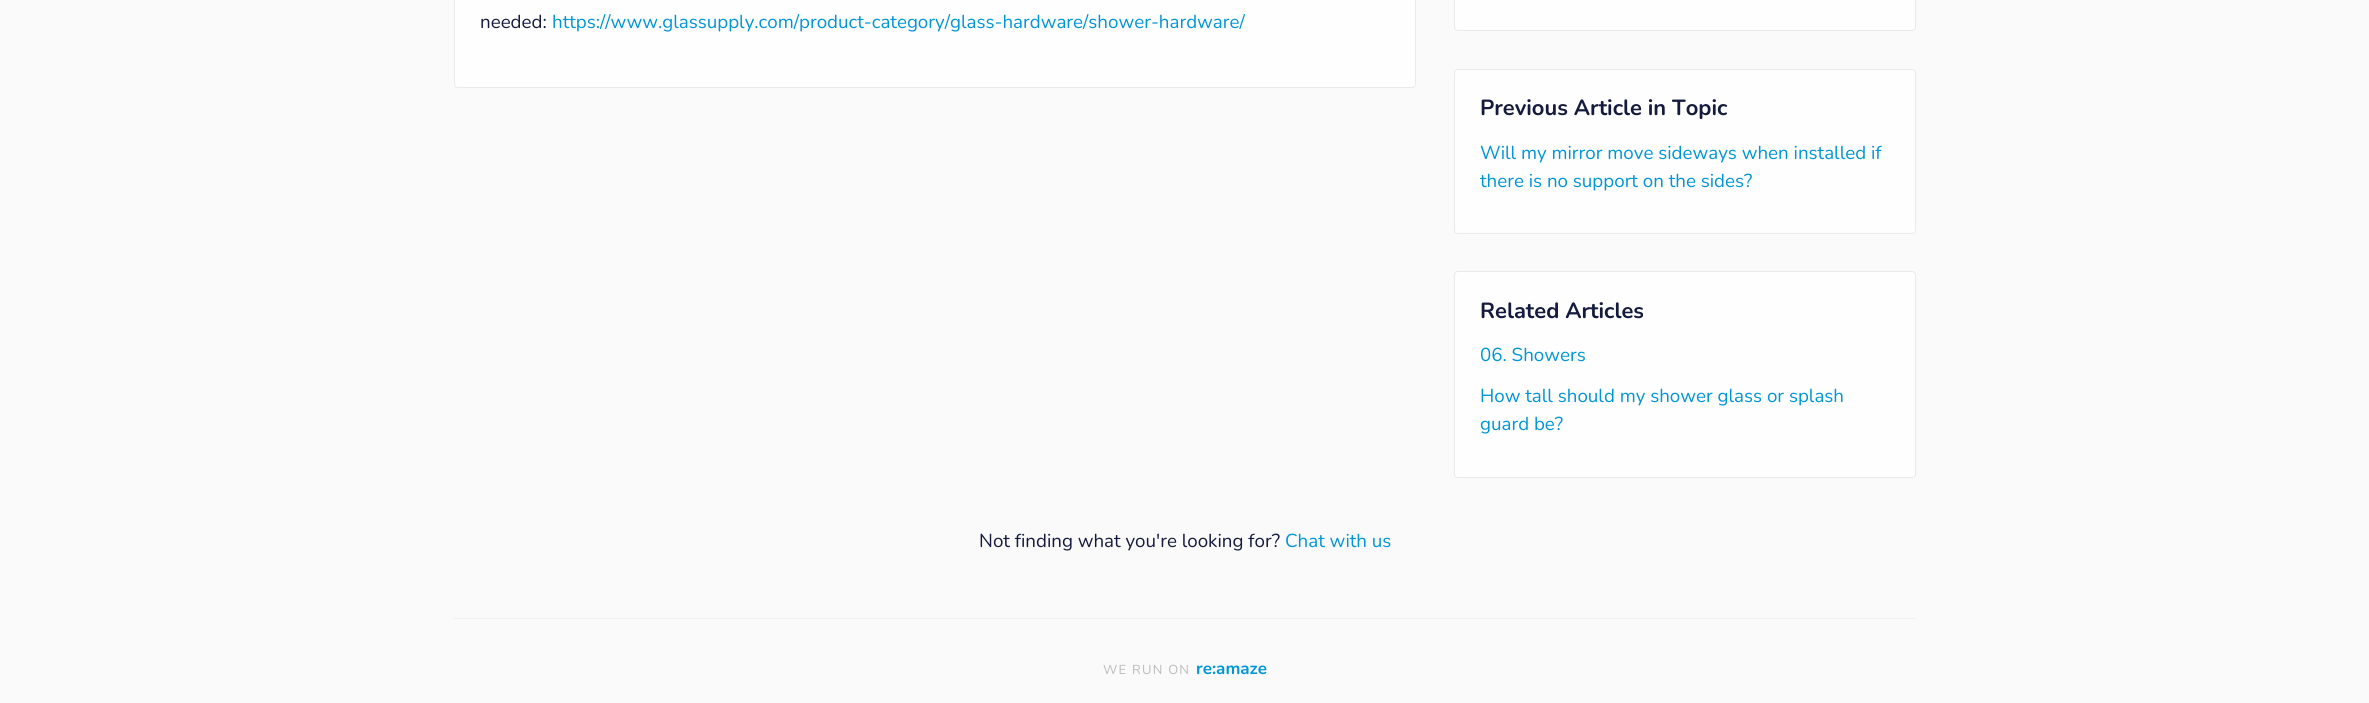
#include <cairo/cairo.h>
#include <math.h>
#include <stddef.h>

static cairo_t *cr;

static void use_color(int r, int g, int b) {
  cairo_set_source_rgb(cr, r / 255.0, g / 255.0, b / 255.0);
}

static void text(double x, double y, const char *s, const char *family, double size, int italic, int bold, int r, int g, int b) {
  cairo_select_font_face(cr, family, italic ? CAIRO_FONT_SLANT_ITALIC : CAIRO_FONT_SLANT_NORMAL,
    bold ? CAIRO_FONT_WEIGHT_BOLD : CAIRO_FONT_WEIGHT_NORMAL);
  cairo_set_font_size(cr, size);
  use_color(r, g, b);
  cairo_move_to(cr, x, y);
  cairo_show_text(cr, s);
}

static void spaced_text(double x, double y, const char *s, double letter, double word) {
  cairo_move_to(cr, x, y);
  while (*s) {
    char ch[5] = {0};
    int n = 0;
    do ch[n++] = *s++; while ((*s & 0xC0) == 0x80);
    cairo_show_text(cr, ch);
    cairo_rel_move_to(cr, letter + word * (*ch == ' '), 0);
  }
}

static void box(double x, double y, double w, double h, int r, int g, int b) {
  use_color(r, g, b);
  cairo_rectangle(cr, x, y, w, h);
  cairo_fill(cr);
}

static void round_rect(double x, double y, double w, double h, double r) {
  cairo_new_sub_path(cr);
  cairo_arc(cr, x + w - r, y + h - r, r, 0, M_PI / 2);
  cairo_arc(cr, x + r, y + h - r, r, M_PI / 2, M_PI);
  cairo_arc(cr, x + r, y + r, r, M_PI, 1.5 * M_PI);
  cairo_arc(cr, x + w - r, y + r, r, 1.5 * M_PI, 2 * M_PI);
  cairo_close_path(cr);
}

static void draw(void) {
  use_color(250, 250, 250);
  cairo_paint(cr);
  cairo_set_source_rgba(cr, 1, 1, 1, 0.8);
  round_rect(454, -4, 962, 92, 4);
  cairo_fill(cr);
  round_rect(454.5, -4.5, 961, 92, 3.5);
  cairo_set_source_rgba(cr, 0, 0, 0, 0.08);
  cairo_set_line_width(cr, 1);
  cairo_stroke(cr);
  use_color(254, 254, 254);
  round_rect(1454.5, -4.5, 461, 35, 3.5);
  cairo_fill_preserve(cr);
  use_color(234, 234, 234);
  cairo_stroke(cr);
  use_color(254, 254, 254);
  round_rect(1454.5, 69.5, 461, 164, 3.5);
  cairo_fill_preserve(cr);
  use_color(234, 234, 234);
  cairo_stroke(cr);
  cairo_set_source_rgba(cr, 1, 1, 1, 0.8);
  round_rect(1454, 271, 462, 207, 4);
  cairo_fill(cr);
  round_rect(1454.5, 271.5, 461, 206, 3.5);
  cairo_set_source_rgba(cr, 0, 0, 0, 0.08);
  cairo_stroke(cr);
  box(454, 618, 1462, 1, 240, 240, 240);
  text(480, 28, "needed:", "Nunito", 18.75, 0, 0, 21, 27, 62);
  text(552, 28, "https://www.glassupply.com/product-category/glass-hardware/shower-hardware/", "Nunito", 18.75, 0, 0, 0, 149, 214);
  text(1480, 115, "Previous Article in Topic", "Nunito", 21.9, 0, 1, 21, 27, 62);
  text(1480, 159, "Will my mirror move sideways when installed if", "Nunito", 18.75, 0, 0, 0, 149, 214);
  text(1480, 187, "there is no support on the sides?", "Nunito", 18.75, 0, 0, 0, 149, 214);
  text(1480, 318, "Related Articles", "Nunito", 21.9, 0, 1, 21, 27, 62);
  text(1480, 361, "06. Showers", "Nunito", 18.75, 0, 0, 0, 149, 214);
  text(1480, 402, "How tall should my shower glass or splash", "Nunito", 18.75, 0, 0, 0, 149, 214);
  text(1480, 430, "guard be?", "Nunito", 18.75, 0, 0, 0, 149, 214);
  text(979, 547, "Not finding what you're looking for?", "Nunito", 18.75, 0, 0, 21, 27, 62);
  text(1285, 547, "Chat with us", "Nunito", 18.75, 0, 0, 0, 149, 214);
  cairo_set_font_size(cr, 13);
  use_color(187, 187, 187);
  spaced_text(1103, 674, "WE RUN ON", 1.25, 0);
  text(1196, 674, "re:amaze", "Nunito", 17, 0, 1, 0, 149, 214);
}

int main(void) {
  cairo_surface_t *surface = cairo_image_surface_create(CAIRO_FORMAT_RGB24, 2369, 703);
  cr = cairo_create(surface);
  cairo_font_options_t *options = cairo_font_options_create();
  cairo_font_options_set_hint_metrics(options, CAIRO_HINT_METRICS_OFF);
  cairo_font_options_set_hint_style(options, CAIRO_HINT_STYLE_NONE);
  cairo_set_font_options(cr, options);
  cairo_set_miter_limit(cr, 4);
  draw();
  cairo_surface_write_to_png(surface, "out.png");
  cairo_font_options_destroy(options);
  cairo_destroy(cr);
  cairo_surface_destroy(surface);
  return 0;
}
